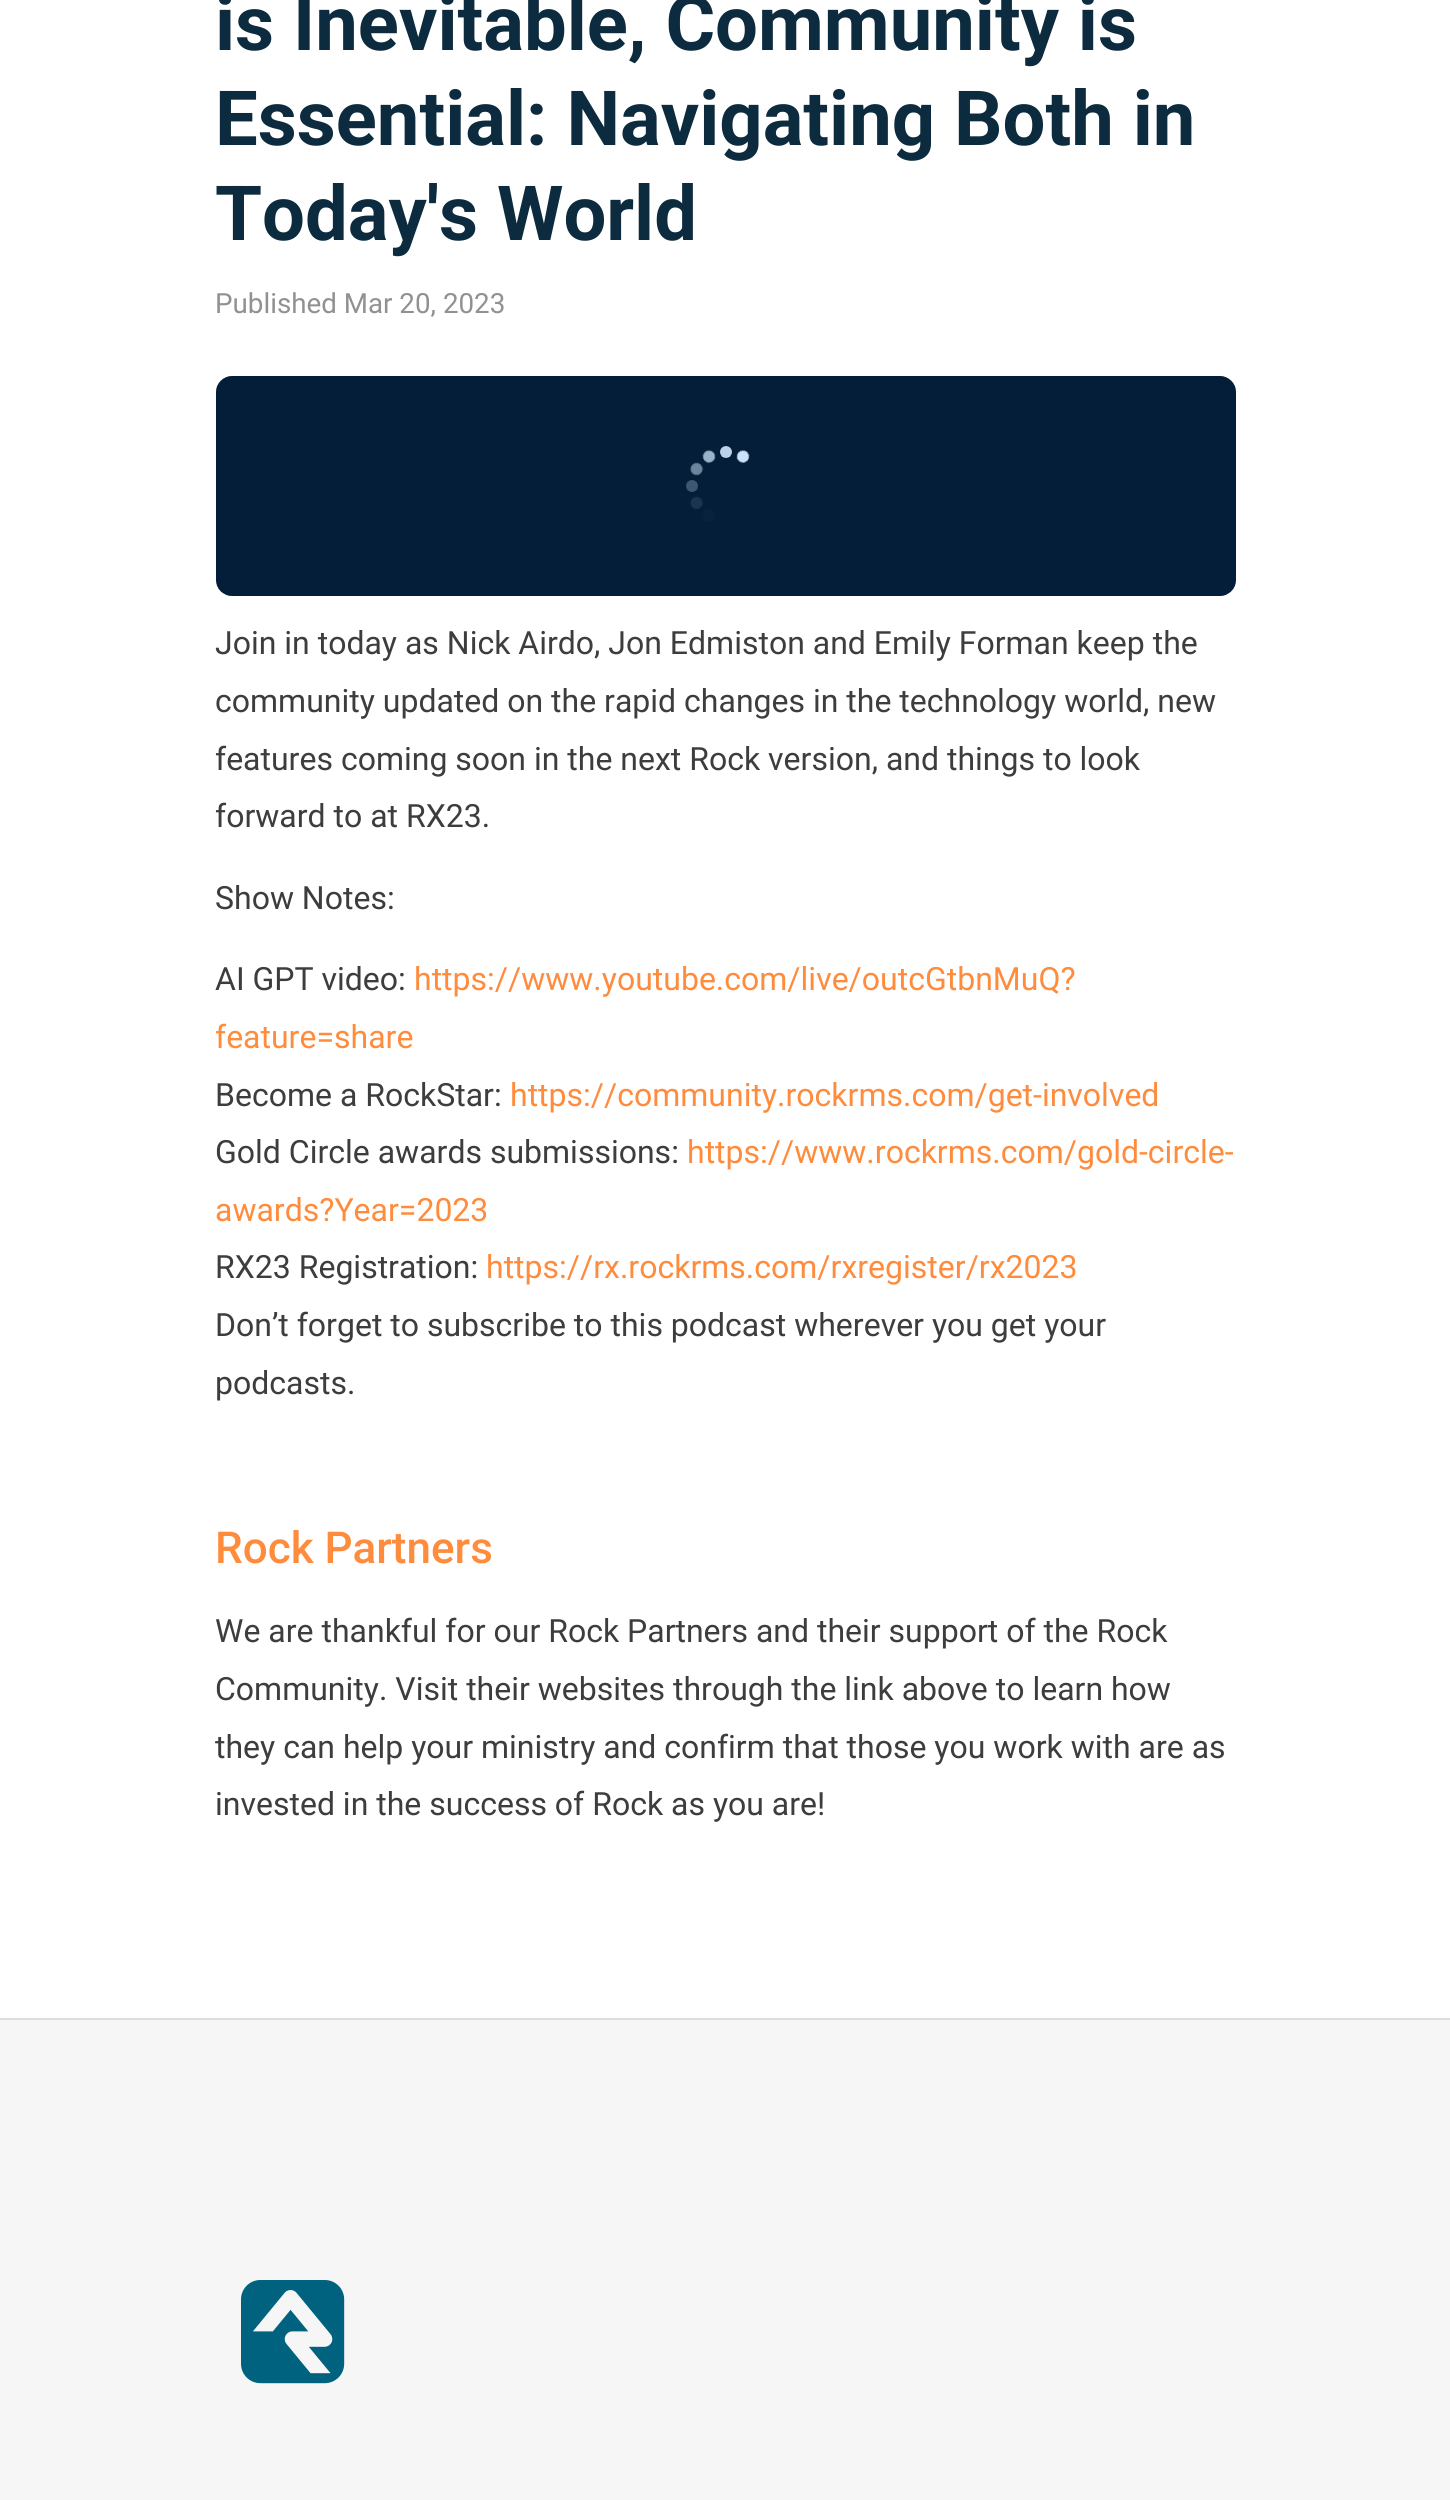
#include <cairo/cairo.h>
#include <math.h>
#include <stddef.h>

static cairo_t *cr;

static void use_color(int r, int g, int b) {
  cairo_set_source_rgb(cr, r / 255.0, g / 255.0, b / 255.0);
}

static void text(double x, double y, const char *s, const char *family, double size, int italic, int bold, int r, int g, int b) {
  cairo_select_font_face(cr, family, italic ? CAIRO_FONT_SLANT_ITALIC : CAIRO_FONT_SLANT_NORMAL,
    bold ? CAIRO_FONT_WEIGHT_BOLD : CAIRO_FONT_WEIGHT_NORMAL);
  cairo_set_font_size(cr, size);
  use_color(r, g, b);
  cairo_move_to(cr, x, y);
  cairo_show_text(cr, s);
}

static void box(double x, double y, double w, double h, int r, int g, int b) {
  use_color(r, g, b);
  cairo_rectangle(cr, x, y, w, h);
  cairo_fill(cr);
}

static void picture(const char *path, double x, double y, double w, double h) {
  cairo_surface_t *image = cairo_image_surface_create_from_png(path);
  cairo_save(cr);
  cairo_set_source_surface(cr, image, x, y);
  cairo_rectangle(cr, x, y, w, h);
  cairo_fill(cr);
  cairo_restore(cr);
  cairo_surface_destroy(image);
}

static void draw(void) {
  use_color(255, 255, 255);
  cairo_paint(cr);
  picture("img_01.png", 216, 376, 1020, 220);
  box(0, 2020, 1450, 480, 246, 246, 246);
  box(0, 2018, 1450, 2, 222, 220, 220);
  picture("img_02.png", 241, 2280, 104, 104);
  text(215, 50, "is Inevitable, Community is", "Roboto", 76, 0, 1, 13, 43, 62);
  text(215, 145, "Essential: Navigating Both in", "Roboto", 76, 0, 1, 13, 43, 62);
  text(215, 240, "Today's World", "Roboto", 76, 0, 1, 13, 43, 62);
  text(215, 313, "Published Mar 20, 2023", "Roboto", 27.75, 0, 0, 145, 145, 145);
  text(215, 654, "Join in today as Nick Airdo, Jon Edmiston and Emily Forman keep the", "Roboto", 32, 0, 0, 61, 61, 61);
  text(215, 712, "community updated on the rapid changes in the technology world, new", "Roboto", 32, 0, 0, 61, 61, 61);
  text(215, 770, "features coming soon in the next Rock version, and things to look", "Roboto", 32, 0, 0, 61, 61, 61);
  text(215, 827, "forward to at RX23.", "Roboto", 32, 0, 0, 61, 61, 61);
  text(215, 909, "Show Notes:", "Roboto", 32, 0, 0, 61, 61, 61);
  text(215, 990, "AI GPT video:", "Roboto", 32, 0, 0, 61, 61, 61);
  text(414, 990, "https://www.youtube.com/live/outcGtbnMuQ?", "Roboto", 32, 0, 0, 255, 140, 61);
  text(215, 1048, "feature=share", "Roboto", 32, 0, 0, 255, 140, 61);
  text(215, 1106, "Become a RockStar:", "Roboto", 32, 0, 0, 61, 61, 61);
  text(510, 1106, "https://community.rockrms.com/get-involved", "Roboto", 32, 0, 0, 255, 140, 61);
  text(215, 1163, "Gold Circle awards submissions:", "Roboto", 32, 0, 0, 61, 61, 61);
  text(687, 1163, "https://www.rockrms.com/gold-circle-", "Roboto", 32, 0, 0, 255, 140, 61);
  text(215, 1221, "awards?Year=2023", "Roboto", 32, 0, 0, 255, 140, 61);
  text(215, 1278, "RX23 Registration:", "Roboto", 32, 0, 0, 61, 61, 61);
  text(486, 1278, "https://rx.rockrms.com/rxregister/rx2023", "Roboto", 32, 0, 0, 255, 140, 61);
  text(215, 1336, "Don’t forget to subscribe to this podcast wherever you get your", "Roboto", 32, 0, 0, 61, 61, 61);
  text(215, 1394, "podcasts.", "Roboto", 32, 0, 0, 61, 61, 61);
  text(215, 1563, "Rock Partners", "Roboto Medium", 44, 0, 0, 255, 140, 61);
  text(215, 1642, "We are thankful for our Rock Partners and their support of the Rock", "Roboto", 32, 0, 0, 61, 61, 61);
  text(215, 1700, "Community. Visit their websites through the link above to learn how", "Roboto", 32, 0, 0, 61, 61, 61);
  text(215, 1758, "they can help your ministry and confirm that those you work with are as", "Roboto", 32, 0, 0, 61, 61, 61);
  text(215, 1815, "invested in the success of Rock as you are!", "Roboto", 32, 0, 0, 61, 61, 61);
}

int main(void) {
  cairo_surface_t *surface = cairo_image_surface_create(CAIRO_FORMAT_RGB24, 1450, 2500);
  cr = cairo_create(surface);
  cairo_font_options_t *options = cairo_font_options_create();
  cairo_font_options_set_hint_metrics(options, CAIRO_HINT_METRICS_OFF);
  cairo_font_options_set_hint_style(options, CAIRO_HINT_STYLE_NONE);
  cairo_set_font_options(cr, options);
  cairo_set_miter_limit(cr, 4);
  draw();
  cairo_surface_write_to_png(surface, "out.png");
  cairo_font_options_destroy(options);
  cairo_destroy(cr);
  cairo_surface_destroy(surface);
  return 0;
}
